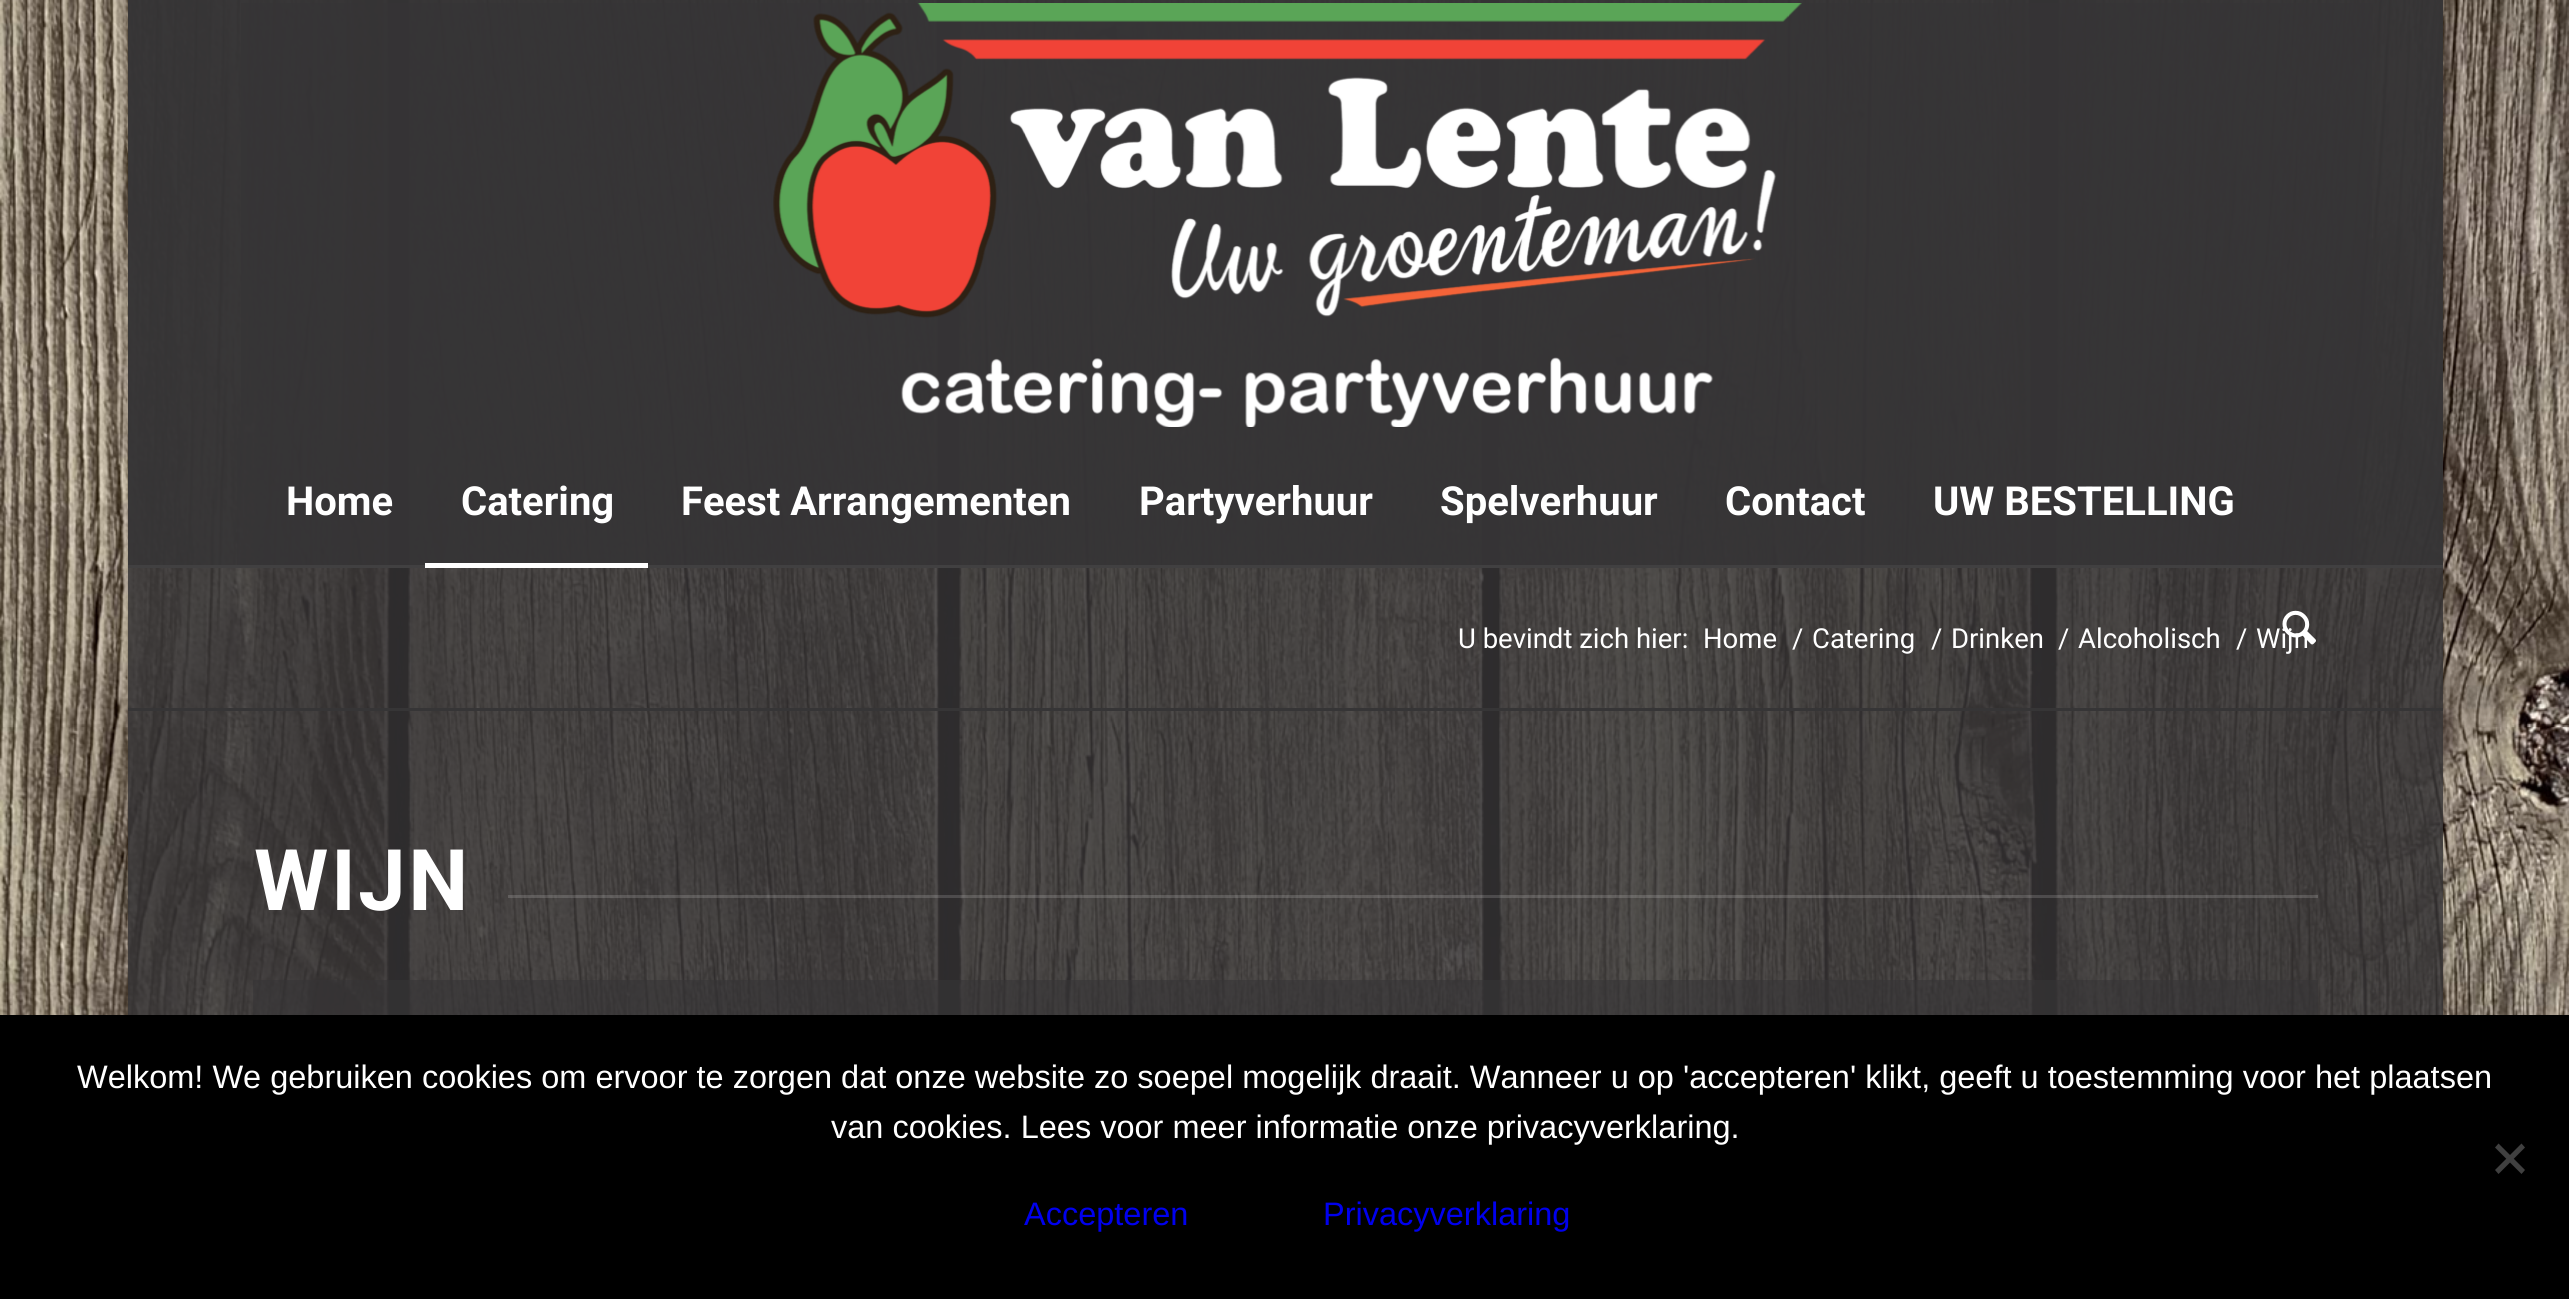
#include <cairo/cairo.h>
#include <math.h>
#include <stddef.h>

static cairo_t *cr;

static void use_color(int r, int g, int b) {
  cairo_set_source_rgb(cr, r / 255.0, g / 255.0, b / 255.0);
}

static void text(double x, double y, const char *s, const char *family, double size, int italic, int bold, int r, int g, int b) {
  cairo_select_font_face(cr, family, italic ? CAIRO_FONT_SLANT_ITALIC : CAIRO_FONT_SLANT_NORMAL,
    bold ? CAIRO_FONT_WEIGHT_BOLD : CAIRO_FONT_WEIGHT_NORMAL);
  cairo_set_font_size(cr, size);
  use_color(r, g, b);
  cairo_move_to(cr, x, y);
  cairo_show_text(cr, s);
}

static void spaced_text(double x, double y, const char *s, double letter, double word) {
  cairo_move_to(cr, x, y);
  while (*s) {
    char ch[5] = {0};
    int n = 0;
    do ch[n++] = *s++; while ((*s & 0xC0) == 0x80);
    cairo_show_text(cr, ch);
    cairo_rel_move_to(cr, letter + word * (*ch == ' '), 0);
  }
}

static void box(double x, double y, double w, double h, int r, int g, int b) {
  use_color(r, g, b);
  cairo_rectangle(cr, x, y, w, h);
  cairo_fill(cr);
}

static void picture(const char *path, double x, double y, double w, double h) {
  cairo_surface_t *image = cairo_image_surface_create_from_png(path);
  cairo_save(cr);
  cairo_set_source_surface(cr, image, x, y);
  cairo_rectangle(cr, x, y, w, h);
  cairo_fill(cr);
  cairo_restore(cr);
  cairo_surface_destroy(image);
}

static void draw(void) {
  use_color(255, 255, 255);
  cairo_paint(cr);
  picture("img_01.png", 0, 0, 2569, 1015);
  box(128, 565, 2315, 3, 225, 225, 225);
  cairo_set_source_rgba(cr, 0.212, 0.208, 0.212, 0.6);
  cairo_rectangle(cr, 128, 0, 2315, 568);
  cairo_fill(cr);
  cairo_set_source_rgba(cr, 0.212, 0.208, 0.212, 0.57);
  cairo_rectangle(cr, 128, 0, 2315, 568);
  cairo_fill(cr);
  cairo_set_source_rgba(cr, 0.212, 0.208, 0.212, 0.6);
  cairo_rectangle(cr, 128, 0, 2315, 568);
  cairo_fill(cr);
  cairo_rectangle(cr, 241, 3, 2131, 435);
  cairo_fill(cr);
  picture("img_02.png", 773, 3, 1029, 424);
  cairo_rectangle(cr, 237, 438, 2120, 127);
  cairo_fill(cr);
  box(425, 563, 223, 5, 255, 255, 255);
  cairo_set_source_rgba(cr, 0.212, 0.208, 0.212, 0.6);
  cairo_rectangle(cr, 128, 568, 2315, 140);
  cairo_fill(cr);
  cairo_rectangle(cr, 128, 711, 2315, 304);
  cairo_fill(cr);
  box(128, 708, 2315, 3, 54, 53, 54);
  cairo_set_source_rgba(cr, 1, 1, 1, 0.15);
  cairo_rectangle(cr, 508, 895, 1810, 3);
  cairo_fill(cr);
  cairo_set_source_rgba(cr, 0.212, 0.208, 0.212, 0.6);
  cairo_rectangle(cr, 253, 980, 2065, 35);
  cairo_fill(cr);
  box(0, 1015, 2569, 284, 0, 0, 0);
  use_color(64, 64, 64);
  cairo_new_path(cr);
  cairo_move_to(cr, 2521.5, 1143.5);
  cairo_line_to(cr, 2525, 1147.5);
  cairo_line_to(cr, 2498.5, 1174);
  cairo_line_to(cr, 2495, 1170);
  cairo_close_path(cr);
  cairo_fill(cr);
  cairo_new_path(cr);
  cairo_move_to(cr, 2495, 1147.5);
  cairo_line_to(cr, 2498.5, 1143.5);
  cairo_line_to(cr, 2525, 1170);
  cairo_line_to(cr, 2521.5, 1174);
  cairo_close_path(cr);
  cairo_fill(cr);
  text(286, 515, "Home", "Roboto", 40, 0, 1, 255, 255, 255);
  text(461, 515, "Catering", "Roboto", 40, 0, 1, 255, 255, 255);
  text(681, 515, "Feest Arrangementen", "Roboto", 40, 0, 1, 255, 255, 255);
  text(1139, 515, "Partyverhuur", "Roboto", 40, 0, 1, 255, 255, 255);
  text(1440, 515, "Spelverhuur", "Roboto", 40, 0, 1, 255, 255, 255);
  text(1725, 515, "Contact", "Roboto", 40, 0, 1, 255, 255, 255);
  text(1933, 515, "UW BESTELLING", "Roboto", 40, 0, 1, 255, 255, 255);
  text(1458, 648, "U bevindt zich hier:", "Roboto", 27.5, 0, 0, 255, 255, 255);
  text(1703, 648, "Home", "Roboto", 27.5, 0, 0, 255, 255, 255);
  text(1792, 648, "/", "Roboto", 27.5, 0, 0, 255, 255, 255);
  text(1812, 648, "Catering", "Roboto", 27.5, 0, 0, 255, 255, 255);
  text(1931, 648, "/", "Roboto", 27.5, 0, 0, 255, 255, 255);
  text(1951, 648, "Drinken", "Roboto", 27.5, 0, 0, 255, 255, 255);
  text(2058, 648, "/", "Roboto", 27.5, 0, 0, 255, 255, 255);
  text(2078, 648, "Alcoholisch", "Roboto", 27.5, 0, 0, 255, 255, 255);
  text(2236, 648, "/", "Roboto", 27.5, 0, 0, 255, 255, 255);
  text(2256, 648, "Wijn", "Roboto", 27.5, 0, 0, 255, 255, 255);
  picture("img_03.png", 2282, 610, 34, 35);
  cairo_select_font_face(cr, "Roboto", CAIRO_FONT_SLANT_NORMAL, CAIRO_FONT_WEIGHT_BOLD);
  cairo_set_font_size(cr, 85);
  spaced_text(254, 910, "WIJN", 2.5, 0);
  text(77, 1088, "Welkom! We gebruiken cookies om ervoor te zorgen dat onze website zo soepel mogelijk draait. Wanneer u op 'accepteren' klikt, geeft u toestemming voor het plaatsen", "Liberation Sans", 32.5, 0, 0, 255, 255, 255);
  text(831, 1138, "van cookies. Lees voor meer informatie onze privacyverklaring.", "Liberation Sans", 32.5, 0, 0, 255, 255, 255);
  text(1024, 1225, "Accepteren", "Liberation Sans", 32.5, 0, 0, 0, 0, 238);
  text(1323, 1225, "Privacyverklaring", "Liberation Sans", 32.5, 0, 0, 0, 0, 238);
}

int main(void) {
  cairo_surface_t *surface = cairo_image_surface_create(CAIRO_FORMAT_RGB24, 2569, 1299);
  cr = cairo_create(surface);
  cairo_font_options_t *options = cairo_font_options_create();
  cairo_font_options_set_hint_metrics(options, CAIRO_HINT_METRICS_OFF);
  cairo_font_options_set_hint_style(options, CAIRO_HINT_STYLE_NONE);
  cairo_set_font_options(cr, options);
  cairo_set_miter_limit(cr, 4);
  draw();
  cairo_surface_write_to_png(surface, "out.png");
  cairo_font_options_destroy(options);
  cairo_destroy(cr);
  cairo_surface_destroy(surface);
  return 0;
}
